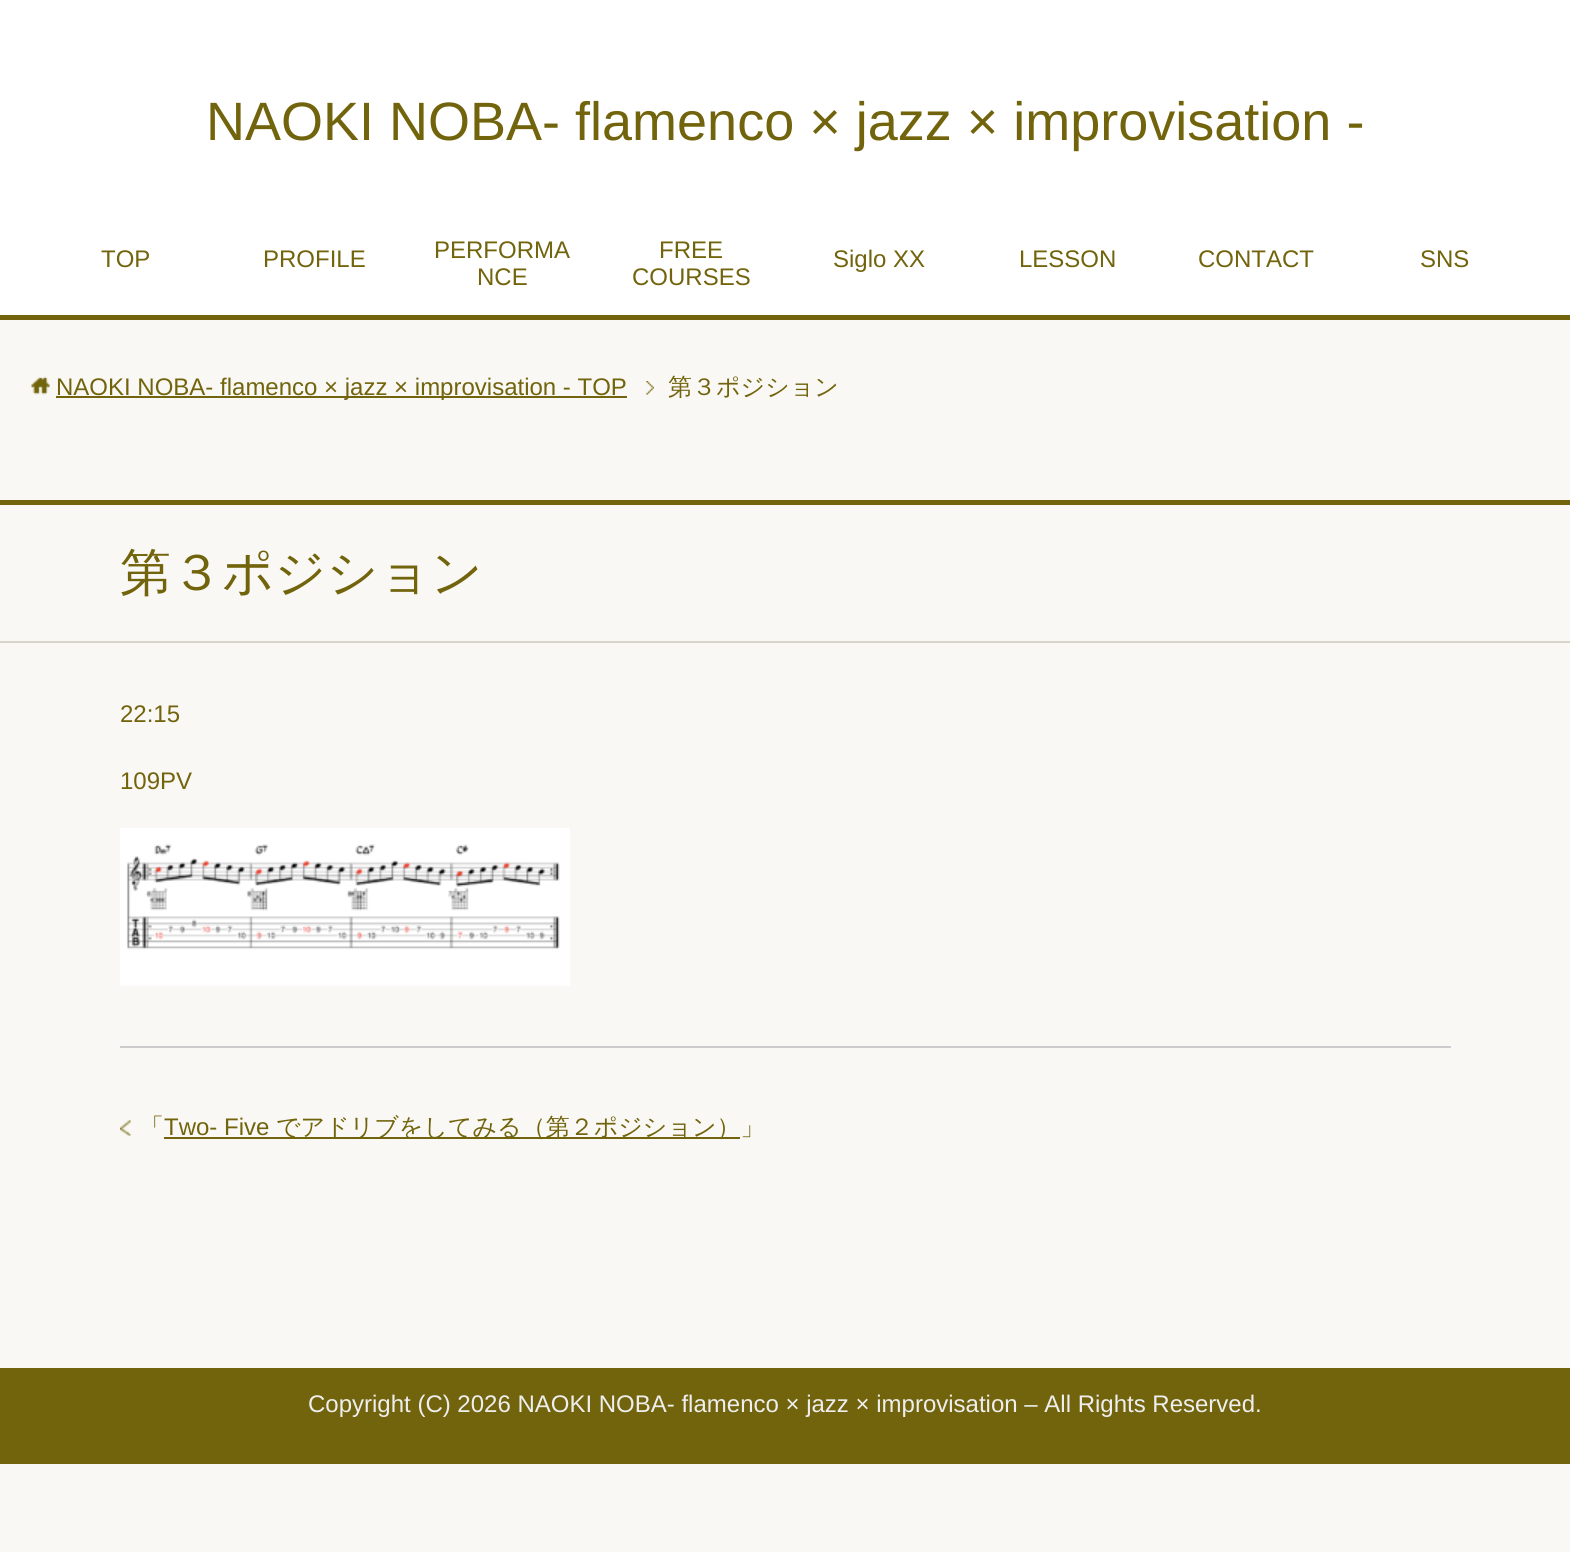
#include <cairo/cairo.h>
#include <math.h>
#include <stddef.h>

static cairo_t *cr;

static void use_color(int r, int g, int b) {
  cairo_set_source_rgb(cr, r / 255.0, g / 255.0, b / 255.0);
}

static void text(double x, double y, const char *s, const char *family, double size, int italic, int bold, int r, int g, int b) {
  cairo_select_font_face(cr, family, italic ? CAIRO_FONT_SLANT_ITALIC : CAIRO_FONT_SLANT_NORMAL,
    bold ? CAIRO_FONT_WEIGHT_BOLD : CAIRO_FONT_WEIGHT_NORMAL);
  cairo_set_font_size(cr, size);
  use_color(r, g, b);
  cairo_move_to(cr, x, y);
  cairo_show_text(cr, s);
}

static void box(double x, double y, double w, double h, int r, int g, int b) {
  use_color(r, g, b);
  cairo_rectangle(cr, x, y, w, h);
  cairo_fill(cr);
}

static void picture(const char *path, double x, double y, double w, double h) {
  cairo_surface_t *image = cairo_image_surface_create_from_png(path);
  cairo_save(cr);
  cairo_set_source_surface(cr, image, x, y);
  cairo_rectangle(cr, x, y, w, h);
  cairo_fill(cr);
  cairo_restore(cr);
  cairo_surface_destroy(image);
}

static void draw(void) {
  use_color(249, 248, 244);
  cairo_paint(cr);
  box(0, 0, 1570, 315, 255, 255, 255);
  box(0, 315, 1570, 5, 114, 100, 12);
  picture("img_01.png", 646, 381, 8, 14);
  picture("img_02.png", 31, 376, 19, 19);
  box(56, 396, 571, 2, 114, 100, 12);
  box(0, 500, 1570, 5, 114, 100, 12);
  box(0, 641, 1570, 2, 215, 213, 202);
  picture("img_03.png", 120, 828, 450, 158);
  box(120, 1046, 1331, 2, 204, 204, 204);
  picture("img_04.png", 120, 1120, 11, 16);
  box(164, 1137, 576, 2, 114, 100, 12);
  box(0, 1368, 1570, 96, 114, 100, 12);
  text(206, 140, "NAOKI NOBA- flamenco × jazz × improvisation -", "Liberation Sans", 54, 0, 0, 114, 100, 12);
  text(101, 267, "TOP", "Liberation Sans", 24, 0, 0, 114, 100, 12);
  text(263, 267, "PROFILE", "Liberation Sans", 24, 0, 0, 114, 100, 12);
  text(434, 258, "PERFORMA", "Liberation Sans", 24, 0, 0, 114, 100, 12);
  text(477, 285, "NCE", "Liberation Sans", 24, 0, 0, 114, 100, 12);
  text(659, 258, "FREE", "Liberation Sans", 24, 0, 0, 114, 100, 12);
  text(632, 285, "COURSES", "Liberation Sans", 24, 0, 0, 114, 100, 12);
  text(833, 267, "Siglo XX", "Liberation Sans", 24, 0, 0, 114, 100, 12);
  text(1019, 267, "LESSON", "Liberation Sans", 24, 0, 0, 114, 100, 12);
  text(1198, 267, "CONTACT", "Liberation Sans", 24, 0, 0, 114, 100, 12);
  text(1420, 267, "SNS", "Liberation Sans", 24, 0, 0, 114, 100, 12);
  text(56, 395, "NAOKI NOBA- flamenco × jazz × improvisation - TOP", "Liberation Sans", 24, 0, 0, 114, 100, 12);
  text(668, 395, "第３ポジション", "WenQuanYi Zen Hei Medium", 24, 0, 0, 114, 100, 12);
  text(120, 590, "第３ポジション", "WenQuanYi Zen Hei Medium", 51, 0, 0, 114, 100, 12);
  text(120, 722, "22:15", "Liberation Sans", 24, 0, 0, 114, 100, 12);
  text(120, 789, "109PV", "Liberation Sans", 24, 0, 0, 114, 100, 12);
  text(140, 1135, "「", "WenQuanYi Zen Hei Medium", 24, 0, 0, 114, 100, 12);
  text(164, 1135, "Two- Five", "Liberation Sans", 24, 0, 0, 114, 100, 12);
  text(276, 1135, "でアドリブをしてみる（第２ポジション）」", "WenQuanYi Zen Hei Medium", 24, 0, 0, 114, 100, 12);
  text(308, 1412, "Copyright (C) 2026 NAOKI NOBA- flamenco × jazz × improvisation – All Rights Reserved.", "Liberation Sans", 24, 0, 0, 238, 238, 238);
}

int main(void) {
  cairo_surface_t *surface = cairo_image_surface_create(CAIRO_FORMAT_RGB24, 1570, 1552);
  cr = cairo_create(surface);
  cairo_font_options_t *options = cairo_font_options_create();
  cairo_font_options_set_hint_metrics(options, CAIRO_HINT_METRICS_OFF);
  cairo_font_options_set_hint_style(options, CAIRO_HINT_STYLE_NONE);
  cairo_set_font_options(cr, options);
  cairo_set_miter_limit(cr, 4);
  draw();
  cairo_surface_write_to_png(surface, "out.png");
  cairo_font_options_destroy(options);
  cairo_destroy(cr);
  cairo_surface_destroy(surface);
  return 0;
}
